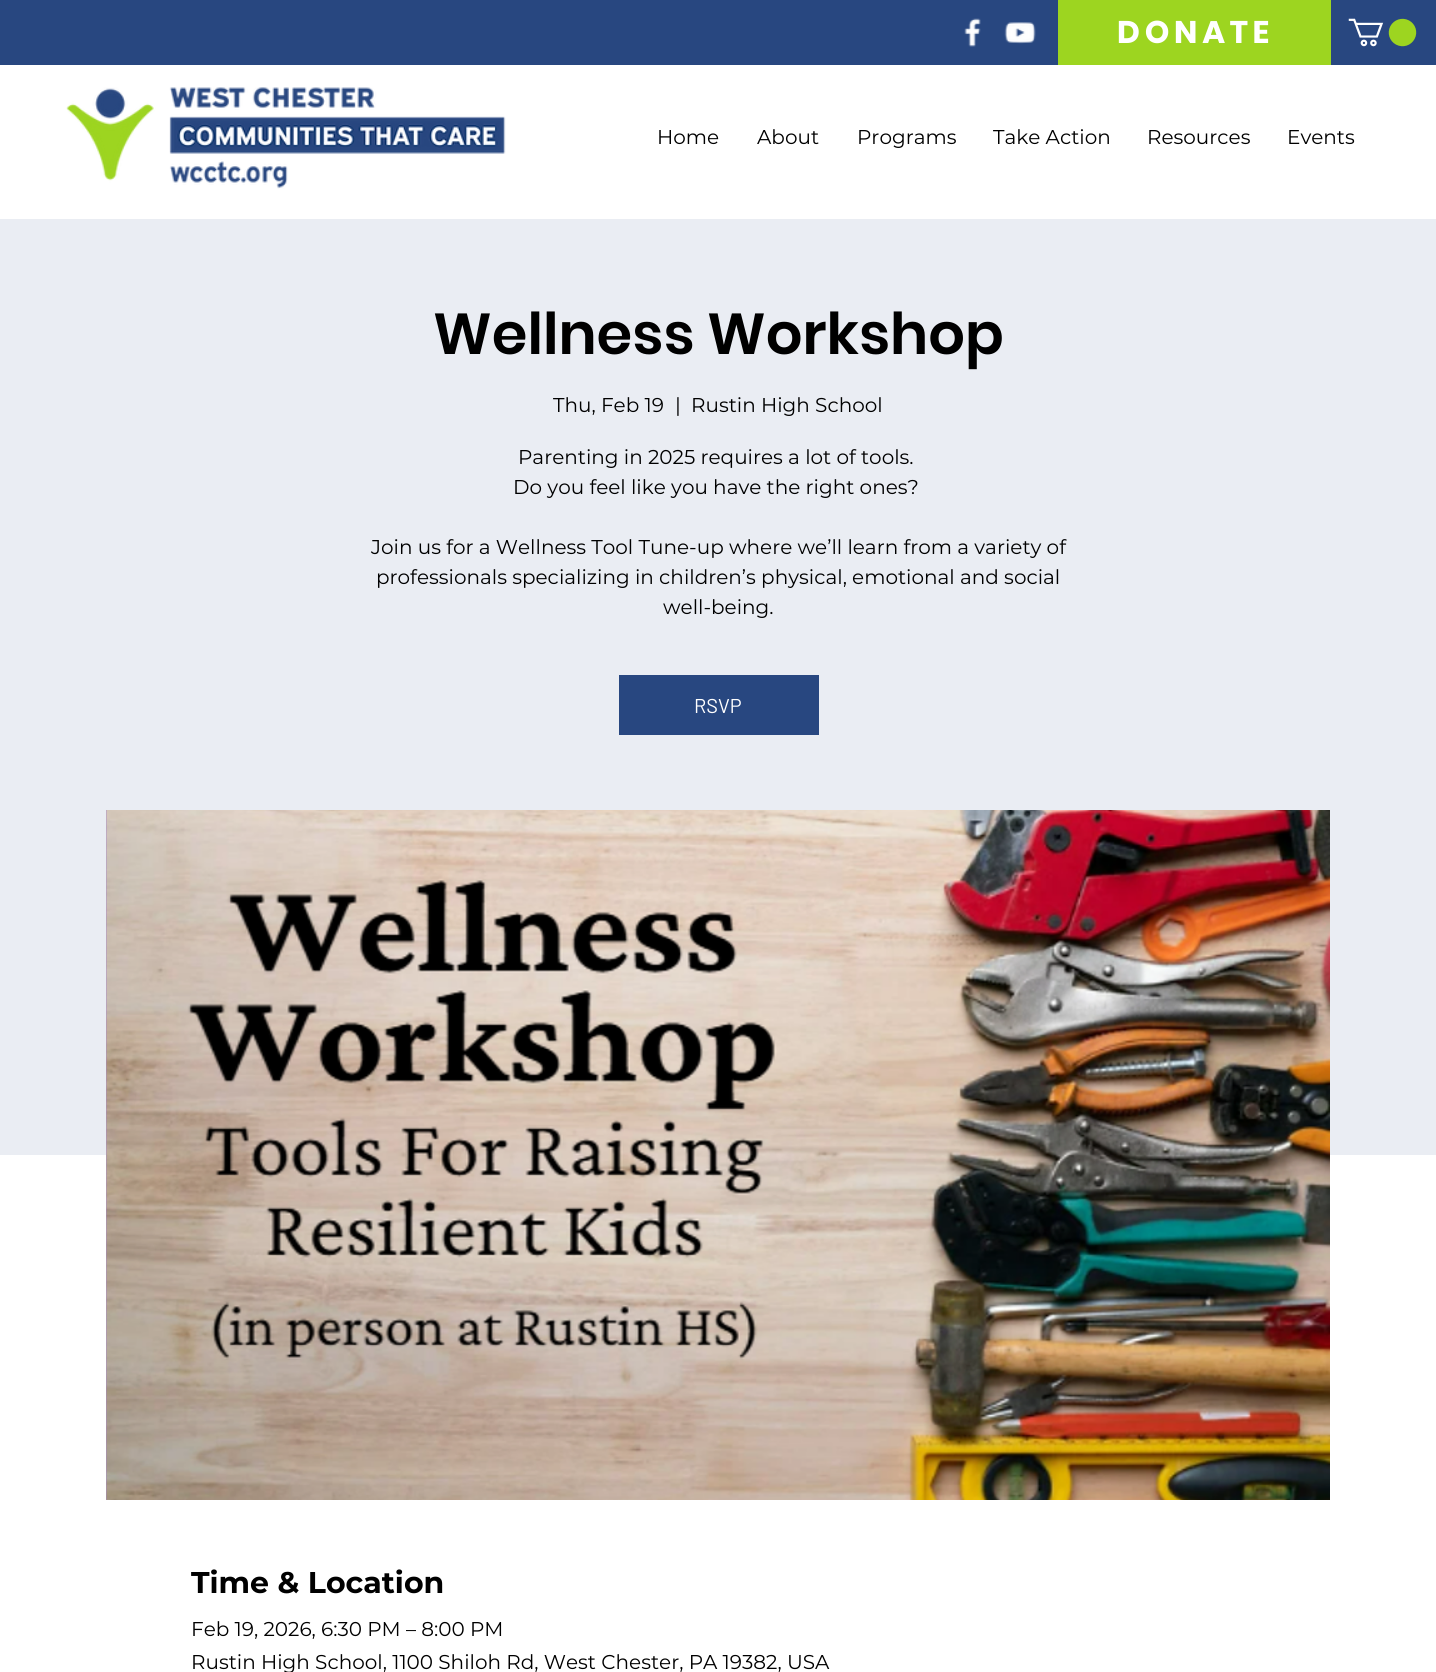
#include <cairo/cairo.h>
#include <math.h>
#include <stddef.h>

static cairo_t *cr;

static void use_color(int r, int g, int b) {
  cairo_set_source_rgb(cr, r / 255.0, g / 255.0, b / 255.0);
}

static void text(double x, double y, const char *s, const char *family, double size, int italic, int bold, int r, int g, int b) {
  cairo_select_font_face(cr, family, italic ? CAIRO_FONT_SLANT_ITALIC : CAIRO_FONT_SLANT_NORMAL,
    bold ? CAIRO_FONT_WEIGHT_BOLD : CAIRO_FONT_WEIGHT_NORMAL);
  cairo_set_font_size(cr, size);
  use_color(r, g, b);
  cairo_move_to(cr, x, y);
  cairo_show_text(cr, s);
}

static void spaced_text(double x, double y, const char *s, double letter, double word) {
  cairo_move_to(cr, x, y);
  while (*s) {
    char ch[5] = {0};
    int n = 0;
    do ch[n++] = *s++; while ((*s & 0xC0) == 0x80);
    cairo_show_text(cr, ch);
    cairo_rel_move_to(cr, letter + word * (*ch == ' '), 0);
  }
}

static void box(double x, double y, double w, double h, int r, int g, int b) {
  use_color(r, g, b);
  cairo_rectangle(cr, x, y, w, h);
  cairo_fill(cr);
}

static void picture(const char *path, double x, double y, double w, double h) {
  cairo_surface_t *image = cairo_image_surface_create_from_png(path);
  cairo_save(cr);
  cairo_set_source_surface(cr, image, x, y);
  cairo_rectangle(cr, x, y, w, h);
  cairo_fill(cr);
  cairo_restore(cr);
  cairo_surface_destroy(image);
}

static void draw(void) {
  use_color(255, 255, 255);
  cairo_paint(cr);
  box(0, 0, 1436, 65, 40, 71, 128);
  picture("img_01.png", 964, 18, 17, 29);
  picture("img_02.png", 1004, 22, 32, 22);
  box(1058, 0, 273, 65, 157, 213, 32);
  picture("img_03.png", 1348, 18, 69, 29);
  picture("img_04.png", 66, 87, 440, 102);
  box(0, 219, 1436, 936, 234, 237, 243);
  box(619, 675, 200, 60, 40, 71, 128);
  box(106, 810, 1, 690, 168, 137, 199);
  picture("img_05.png", 106, 810, 1224, 690);
  cairo_select_font_face(cr, "Poppins", CAIRO_FONT_SLANT_NORMAL, CAIRO_FONT_WEIGHT_BOLD);
  cairo_set_font_size(cr, 31.25);
  use_color(255, 255, 255);
  spaced_text(1117, 43, "DONATE", 4.75, 0);
  text(657, 144, "Home", "Montserrat", 20, 0, 0, 0, 0, 0);
  text(757, 144, "About", "Montserrat", 20, 0, 0, 0, 0, 0);
  text(857, 144, "Programs", "Montserrat", 20, 0, 0, 0, 0, 0);
  text(993, 144, "Take Action", "Montserrat", 20, 0, 0, 0, 0, 0);
  text(1147, 144, "Resources", "Montserrat", 20, 0, 0, 0, 0, 0);
  text(1287, 144, "Events", "Montserrat", 20, 0, 0, 0, 0, 0);
  text(433, 354, "Wellness Workshop", "Poppins SemiBold", 57.5, 0, 0, 0, 0, 0);
  text(553, 412, "Thu, Feb 19", "Montserrat", 20, 0, 0, 0, 0, 0);
  text(675, 412, "|", "Montserrat", 20, 0, 0, 0, 0, 0);
  text(691, 412, "Rustin High School", "Montserrat", 20, 0, 0, 0, 0, 0);
  text(518, 464, "Parenting in 2025 requires a lot of tools.", "Montserrat", 20, 0, 0, 0, 0, 0);
  text(513, 494, "Do you feel like you have the right ones?", "Montserrat", 20, 0, 0, 0, 0, 0);
  text(371, 554, "Join us for a Wellness Tool Tune-up where we’ll learn from a variety of", "Montserrat", 20, 0, 0, 0, 0, 0);
  text(376, 584, "professionals specializing in children’s physical, emotional and social", "Montserrat", 20, 0, 0, 0, 0, 0);
  text(663, 614, "well-being.", "Montserrat", 20, 0, 0, 0, 0, 0);
  text(694, 713, "RSVP", "Barlow", 20, 0, 0, 255, 255, 255);
  text(191, 1593, "Time & Location", "Montserrat", 30, 0, 1, 0, 0, 0);
  text(191, 1636, "Feb 19, 2026, 6:30 PM – 8:00 PM", "Montserrat", 20, 0, 0, 0, 0, 0);
  text(191, 1669, "Rustin High School, 1100 Shiloh Rd, West Chester, PA 19382, USA", "Montserrat", 20, 0, 0, 0, 0, 0);
}

int main(void) {
  cairo_surface_t *surface = cairo_image_surface_create(CAIRO_FORMAT_RGB24, 1436, 1672);
  cr = cairo_create(surface);
  cairo_font_options_t *options = cairo_font_options_create();
  cairo_font_options_set_hint_metrics(options, CAIRO_HINT_METRICS_OFF);
  cairo_font_options_set_hint_style(options, CAIRO_HINT_STYLE_NONE);
  cairo_set_font_options(cr, options);
  cairo_set_miter_limit(cr, 4);
  draw();
  cairo_surface_write_to_png(surface, "out.png");
  cairo_font_options_destroy(options);
  cairo_destroy(cr);
  cairo_surface_destroy(surface);
  return 0;
}
